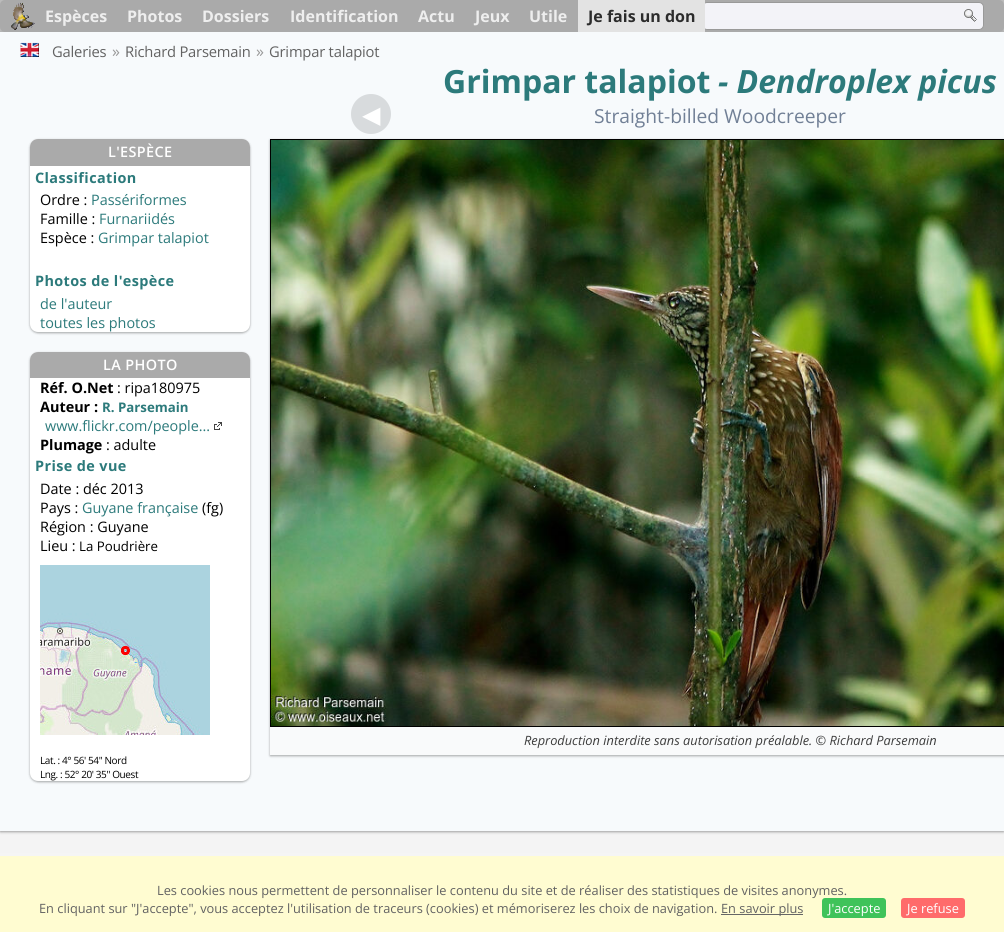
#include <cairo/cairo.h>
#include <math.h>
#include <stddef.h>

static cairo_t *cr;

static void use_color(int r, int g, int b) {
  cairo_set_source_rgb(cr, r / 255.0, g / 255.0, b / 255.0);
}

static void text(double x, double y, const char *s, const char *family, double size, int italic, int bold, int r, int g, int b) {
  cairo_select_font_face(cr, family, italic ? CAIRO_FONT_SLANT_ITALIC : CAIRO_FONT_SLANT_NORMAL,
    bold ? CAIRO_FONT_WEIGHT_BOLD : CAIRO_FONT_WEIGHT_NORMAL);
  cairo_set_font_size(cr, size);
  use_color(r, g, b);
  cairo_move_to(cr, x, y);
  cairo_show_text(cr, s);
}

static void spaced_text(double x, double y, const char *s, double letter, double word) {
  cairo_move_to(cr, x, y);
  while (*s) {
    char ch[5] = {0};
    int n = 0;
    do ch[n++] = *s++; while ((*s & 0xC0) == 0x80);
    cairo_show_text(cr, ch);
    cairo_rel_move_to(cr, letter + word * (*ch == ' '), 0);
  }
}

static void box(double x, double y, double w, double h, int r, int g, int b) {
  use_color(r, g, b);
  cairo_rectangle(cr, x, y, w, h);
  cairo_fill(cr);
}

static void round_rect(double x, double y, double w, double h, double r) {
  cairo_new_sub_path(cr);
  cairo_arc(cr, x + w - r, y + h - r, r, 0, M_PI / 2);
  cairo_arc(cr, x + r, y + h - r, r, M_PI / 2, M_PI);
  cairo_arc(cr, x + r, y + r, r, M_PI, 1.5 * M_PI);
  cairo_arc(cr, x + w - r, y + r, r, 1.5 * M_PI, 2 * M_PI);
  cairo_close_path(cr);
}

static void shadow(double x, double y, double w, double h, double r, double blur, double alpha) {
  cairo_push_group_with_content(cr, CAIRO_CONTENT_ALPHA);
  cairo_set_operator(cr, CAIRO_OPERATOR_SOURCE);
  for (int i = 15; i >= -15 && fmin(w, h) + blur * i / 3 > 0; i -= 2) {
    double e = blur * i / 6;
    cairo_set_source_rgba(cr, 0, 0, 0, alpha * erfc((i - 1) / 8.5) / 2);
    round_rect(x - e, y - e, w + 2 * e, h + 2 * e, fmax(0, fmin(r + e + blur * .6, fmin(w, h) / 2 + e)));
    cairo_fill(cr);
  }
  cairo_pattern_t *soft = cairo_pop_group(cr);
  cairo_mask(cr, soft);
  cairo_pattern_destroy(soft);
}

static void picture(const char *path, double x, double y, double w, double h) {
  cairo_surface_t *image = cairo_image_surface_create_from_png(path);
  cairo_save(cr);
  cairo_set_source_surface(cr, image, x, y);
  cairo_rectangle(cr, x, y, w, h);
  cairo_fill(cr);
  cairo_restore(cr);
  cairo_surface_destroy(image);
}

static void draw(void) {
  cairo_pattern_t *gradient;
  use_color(255, 255, 255);
  cairo_paint(cr);
  gradient = cairo_pattern_create_linear(502, 0, 502, 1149);
  cairo_pattern_add_color_stop_rgba(gradient, 0, 0.733, 0.733, 0.733, 1);
  cairo_pattern_add_color_stop_rgba(gradient, 0.22, 0.733, 0.733, 0.733, 1);
  cairo_pattern_add_color_stop_rgba(gradient, 0.39, 0.867, 0.867, 0.867, 1);
  cairo_pattern_add_color_stop_rgba(gradient, 0.9, 1, 1, 1, 1);
  cairo_pattern_add_color_stop_rgba(gradient, 1, 1, 1, 1, 1);
  cairo_set_source(cr, gradient);
  cairo_pattern_destroy(gradient);
  cairo_rectangle(cr, 0, 0, 1004, 856);
  cairo_fill(cr);
  use_color(0, 0, 0);
  shadow(0, 33, 1004, 799, 0, 1, 0.24);
  shadow(0, 33, 1004, 799, 0, 1.5, 0.12);
  use_color(170, 170, 170);
  round_rect(0, 0, 1004, 32, 5);
  cairo_fill(cr);
  picture("img_01.png", 11, 2, 24, 28);
  use_color(243, 243, 248);
  round_rect(702.5, 2.5, 281, 27, 4.5);
  cairo_fill_preserve(cr);
  use_color(153, 153, 153);
  cairo_set_line_width(cr, 1);
  cairo_stroke(cr);
  box(578, 0, 127, 32, 227, 227, 227);
  picture("img_02.png", 964, 9, 13, 13);
  box(0, 32, 1004, 799, 247, 250, 252);
  picture("img_03.png", 20, 42, 19, 15);
  use_color(0, 0, 0);
  shadow(30, 140, 220, 193, 8, 1, 0.24);
  shadow(30, 140, 220, 193, 8, 1.5, 0.12);
  use_color(255, 255, 255);
  round_rect(30, 139, 220, 193, 8);
  cairo_fill(cr);
  use_color(170, 170, 170);
  cairo_new_path(cr);
  cairo_move_to(cr, 38, 139);
  cairo_line_to(cr, 242, 139);
  cairo_curve_to(cr, 246.5, 139, 250, 142.5, 250, 147);
  cairo_line_to(cr, 250, 166);
  cairo_line_to(cr, 30, 166);
  cairo_line_to(cr, 30, 147);
  cairo_curve_to(cr, 30, 142.5, 33.5, 139, 38, 139);
  cairo_close_path(cr);
  cairo_fill(cr);
  use_color(0, 0, 0);
  shadow(30, 353, 220, 429, 8, 1, 0.24);
  shadow(30, 353, 220, 429, 8, 1.5, 0.12);
  use_color(255, 255, 255);
  round_rect(30, 352, 220, 429, 8);
  cairo_fill(cr);
  use_color(170, 170, 170);
  cairo_new_path(cr);
  cairo_move_to(cr, 38, 352);
  cairo_line_to(cr, 242, 352);
  cairo_curve_to(cr, 246.5, 352, 250, 355.5, 250, 360);
  cairo_line_to(cr, 250, 378);
  cairo_line_to(cr, 30, 378);
  cairo_line_to(cr, 30, 360);
  cairo_curve_to(cr, 30, 355.5, 33.5, 352, 38, 352);
  cairo_close_path(cr);
  cairo_fill(cr);
  picture("img_04.png", 214, 422, 8, 8);
  picture("img_05.png", 40, 565, 170, 170);
  use_color(216, 219, 221);
  cairo_arc(cr, 371, 114, 20, 0, 2 * M_PI);
  cairo_fill(cr);
  use_color(0, 0, 0);
  shadow(270, 140, 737, 616, 0, 1, 0.24);
  shadow(270, 140, 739, 616, 0, 1.5, 0.12);
  cairo_rectangle(cr, 270.5, 139.5, 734, 587);
  use_color(0, 0, 0);
  cairo_stroke(cr);
  picture("img_06.png", 271, 140, 733, 586);
  box(270, 727, 734, 28, 249, 250, 251);
  box(0, 856, 1004, 76, 255, 252, 209);
  box(721, 914, 82, 1, 102, 102, 102);
  use_color(255, 107, 107);
  round_rect(901, 898, 64, 20, 3);
  cairo_fill(cr);
  text(45, 22, "Espèces", "Open Sans", 16, 0, 1, 238, 238, 238);
  text(127, 22, "Photos", "Open Sans", 16, 0, 1, 238, 238, 238);
  text(202, 22, "Dossiers", "Open Sans", 16, 0, 1, 238, 238, 238);
  text(290, 22, "Identification", "Open Sans", 16, 0, 1, 238, 238, 238);
  text(418, 22, "Actu", "Open Sans", 16, 0, 1, 238, 238, 238);
  text(475, 22, "Jeux", "Open Sans", 16, 0, 1, 238, 238, 238);
  text(529, 22, "Utile", "Open Sans", 16, 0, 1, 238, 238, 238);
  text(588, 22, "Je fais un don", "Open Sans", 16, 0, 1, 44, 44, 44);
  cairo_select_font_face(cr, "Open Sans", CAIRO_FONT_SLANT_NORMAL, CAIRO_FONT_WEIGHT_NORMAL);
  cairo_set_font_size(cr, 14.75);
  use_color(98, 98, 98);
  spaced_text(52, 57, "Galeries", -0.2, 0);
  text(112, 57, "»", "Open Sans", 16, 0, 0, 153, 153, 153);
  cairo_set_font_size(cr, 14.75);
  use_color(98, 98, 98);
  spaced_text(125, 57, "Richard Parsemain", -0.2, 0);
  text(256, 57, "»", "Open Sans", 16, 0, 0, 153, 153, 153);
  cairo_set_font_size(cr, 14.75);
  use_color(98, 98, 98);
  spaced_text(269, 57, "Grimpar talapiot", -0.2, 0);
  text(443, 93, "Grimpar talapiot", "Open Sans", 32, 0, 1, 44, 122, 123);
  text(718, 93, "- Dendroplex picus", "Open Sans", 32, 1, 1, 44, 122, 123);
  text(594, 123, "Straight-billed Woodcreeper", "Open Sans", 19.25, 0, 0, 113, 128, 150);
  cairo_select_font_face(cr, "Open Sans SemiBold", CAIRO_FONT_SLANT_NORMAL, CAIRO_FONT_WEIGHT_NORMAL);
  cairo_set_font_size(cr, 14.4);
  use_color(255, 255, 255);
  spaced_text(108, 157, "L'ESPÈCE", 0.4, 0);
  cairo_select_font_face(cr, "Open Sans", CAIRO_FONT_SLANT_NORMAL, CAIRO_FONT_WEIGHT_BOLD);
  use_color(44, 122, 123);
  spaced_text(35, 183, "Classification", 0.4, 0);
  text(40, 205, "Ordre :", "Open Sans", 14.4, 0, 0, 0, 0, 0);
  text(91, 205, "Passériformes", "Open Sans", 14.4, 0, 0, 44, 122, 123);
  text(40, 224, "Famille :", "Open Sans", 14.4, 0, 0, 0, 0, 0);
  text(99, 224, "Furnariidés", "Open Sans", 14.4, 0, 0, 44, 122, 123);
  text(40, 243, "Espèce :", "Open Sans", 14.4, 0, 0, 0, 0, 0);
  text(98, 243, "Grimpar talapiot", "Open Sans", 14.4, 0, 0, 44, 122, 123);
  cairo_select_font_face(cr, "Open Sans", CAIRO_FONT_SLANT_NORMAL, CAIRO_FONT_WEIGHT_BOLD);
  spaced_text(35, 286, "Photos de l'espèce", 0.4, 0);
  text(40, 309, "de l'auteur", "Open Sans", 14.4, 0, 0, 44, 122, 123);
  text(40, 328, "toutes les photos", "Open Sans", 14.4, 0, 0, 44, 122, 123);
  cairo_select_font_face(cr, "Open Sans SemiBold", CAIRO_FONT_SLANT_NORMAL, CAIRO_FONT_WEIGHT_NORMAL);
  use_color(255, 255, 255);
  spaced_text(103, 370, "LA PHOTO", 0.4, 0);
  text(40, 393, "Réf. O.Net", "Open Sans", 14.4, 0, 1, 0, 0, 0);
  text(117, 393, ": ripa180975", "Open Sans", 14.4, 0, 0, 0, 0, 0);
  text(40, 412, "Auteur :", "Open Sans", 14.4, 0, 1, 0, 0, 0);
  text(102, 412, "R. Parsemain", "Open Sans", 13.25, 0, 1, 44, 122, 123);
  text(45, 431, "www.flickr.com/people...", "Open Sans", 14.4, 0, 0, 44, 122, 123);
  text(40, 450, "Plumage", "Open Sans", 14.4, 0, 1, 0, 0, 0);
  text(106, 450, ": adulte", "Open Sans", 14.4, 0, 0, 0, 0, 0);
  cairo_select_font_face(cr, "Open Sans", CAIRO_FONT_SLANT_NORMAL, CAIRO_FONT_WEIGHT_BOLD);
  use_color(44, 122, 123);
  spaced_text(35, 471, "Prise de vue", 0.4, 0);
  text(40, 494, "Date : déc 2013", "Open Sans", 14.4, 0, 0, 0, 0, 0);
  text(40, 513, "Pays :", "Open Sans", 14.4, 0, 0, 0, 0, 0);
  text(82, 513, "Guyane française", "Open Sans", 14.4, 0, 0, 44, 122, 123);
  text(202, 513, "(fg)", "Open Sans", 14.4, 0, 0, 0, 0, 0);
  text(40, 532, "Région : Guyane", "Open Sans", 14.4, 0, 0, 0, 0, 0);
  text(40, 551, "Lieu :", "Open Sans", 14.4, 0, 0, 0, 0, 0);
  text(79, 551, "La Poudrière", "Open Sans", 13.25, 0, 0, 0, 0, 0);
  cairo_set_font_size(cr, 10);
  spaced_text(40, 764, "Lat. : 4° 56' 54'' Nord", -0.4, 0);
  spaced_text(40, 778, "Lng. : 52° 20' 35'' Ouest", -0.4, 0);
  text(362, 123, "◀", "DejaVu Sans", 24, 0, 0, 255, 255, 255);
  text(524, 745, "Reproduction interdite sans autorisation préalable. © Richard Parsemain", "Open Sans", 12.8, 1, 0, 61, 61, 61);
  text(157, 895, "Les cookies nous permettent de personnaliser le contenu du site et de réaliser des statistiques de visites anonymes.", "Open Sans", 12.8, 0, 0, 98, 98, 98);
  text(39, 913, "En cliquant sur \"J'accepte\", vous acceptez l'utilisation de traceurs (cookies) et mémoriserez les choix de navigation.", "Open Sans", 12.8, 0, 0, 98, 98, 98);
  text(721, 913, "En savoir plus", "Open Sans", 12.8, 0, 0, 98, 98, 98);
  use_color(63, 195, 90);
  round_rect(822, 898, 64, 20, 3);
  cairo_fill(cr);
  text(828, 913, "J'accepte", "Open Sans", 12.8, 0, 0, 255, 255, 255);
  text(907, 913, "Je refuse", "Open Sans", 12.8, 0, 0, 255, 255, 255);
}

int main(void) {
  cairo_surface_t *surface = cairo_image_surface_create(CAIRO_FORMAT_RGB24, 1004, 932);
  cr = cairo_create(surface);
  cairo_font_options_t *options = cairo_font_options_create();
  cairo_font_options_set_hint_metrics(options, CAIRO_HINT_METRICS_OFF);
  cairo_font_options_set_hint_style(options, CAIRO_HINT_STYLE_NONE);
  cairo_set_font_options(cr, options);
  cairo_set_miter_limit(cr, 4);
  draw();
  cairo_surface_write_to_png(surface, "out.png");
  cairo_font_options_destroy(options);
  cairo_destroy(cr);
  cairo_surface_destroy(surface);
  return 0;
}
